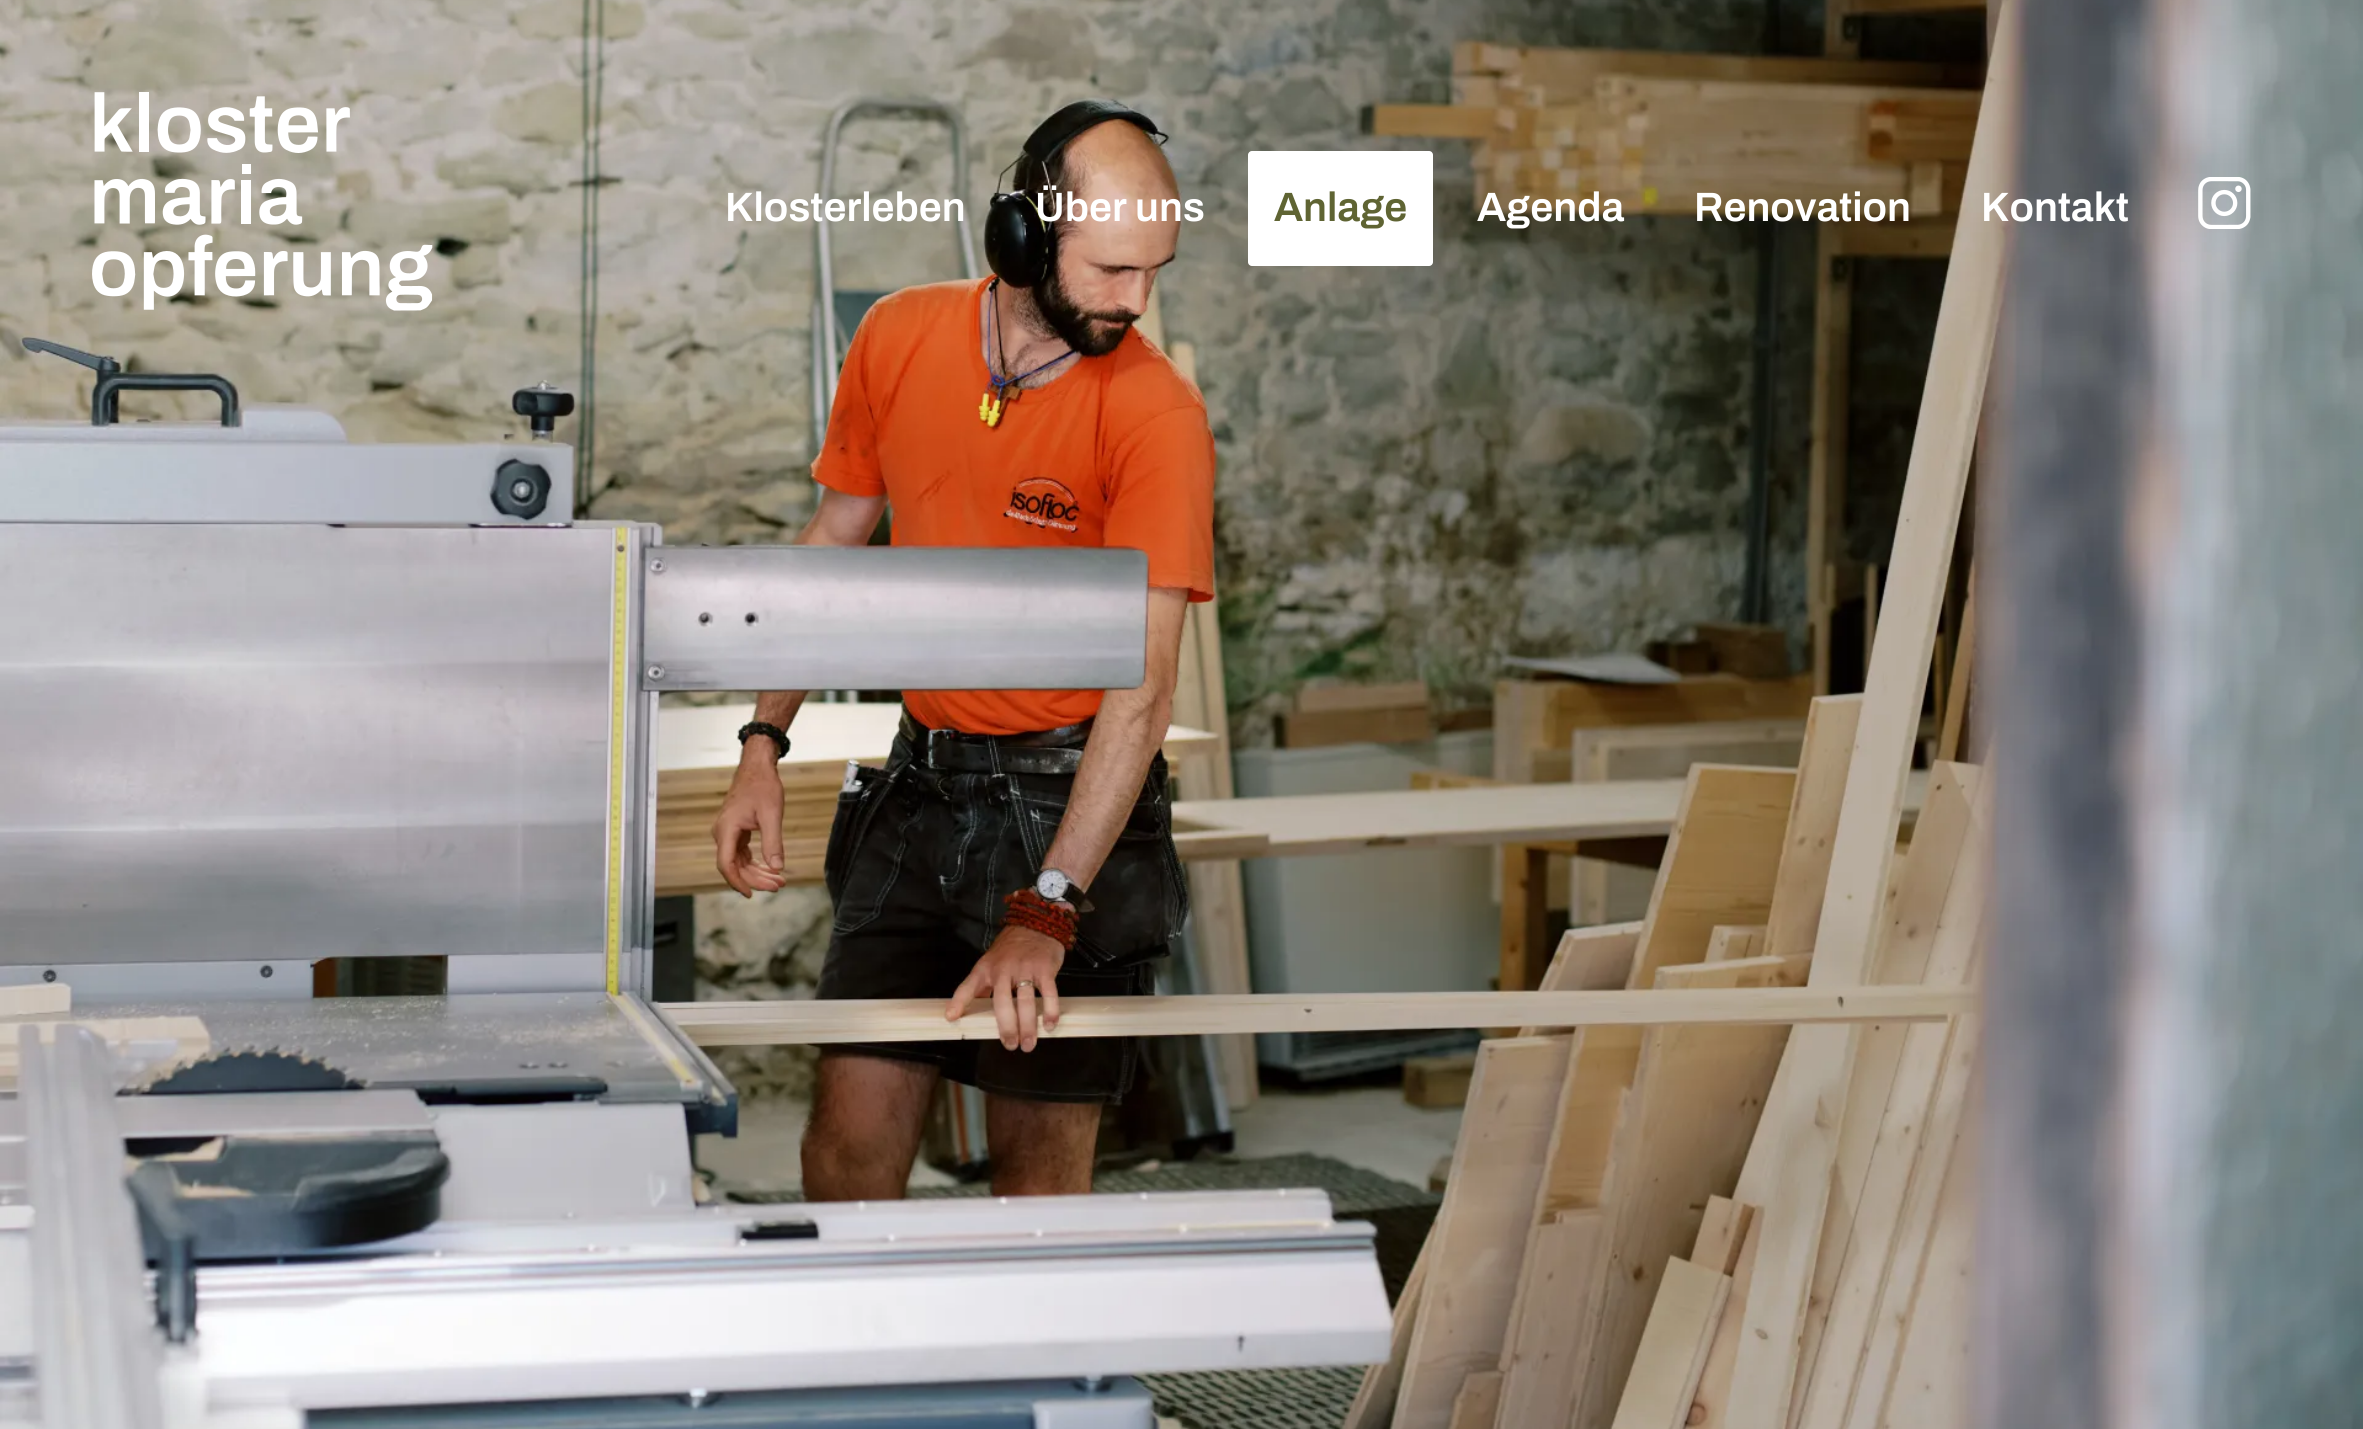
#include <cairo/cairo.h>
#include <math.h>
#include <stddef.h>

static cairo_t *cr;

static void use_color(int r, int g, int b) {
  cairo_set_source_rgb(cr, r / 255.0, g / 255.0, b / 255.0);
}

static void text(double x, double y, const char *s, const char *family, double size, int italic, int bold, int r, int g, int b) {
  cairo_select_font_face(cr, family, italic ? CAIRO_FONT_SLANT_ITALIC : CAIRO_FONT_SLANT_NORMAL,
    bold ? CAIRO_FONT_WEIGHT_BOLD : CAIRO_FONT_WEIGHT_NORMAL);
  cairo_set_font_size(cr, size);
  use_color(r, g, b);
  cairo_move_to(cr, x, y);
  cairo_show_text(cr, s);
}

static void round_rect(double x, double y, double w, double h, double r) {
  cairo_new_sub_path(cr);
  cairo_arc(cr, x + w - r, y + h - r, r, 0, M_PI / 2);
  cairo_arc(cr, x + r, y + h - r, r, M_PI / 2, M_PI);
  cairo_arc(cr, x + r, y + r, r, M_PI, 1.5 * M_PI);
  cairo_arc(cr, x + w - r, y + r, r, 1.5 * M_PI, 2 * M_PI);
  cairo_close_path(cr);
}

static void picture(const char *path, double x, double y, double w, double h) {
  cairo_surface_t *image = cairo_image_surface_create_from_png(path);
  cairo_save(cr);
  cairo_set_source_surface(cr, image, x, y);
  cairo_rectangle(cr, x, y, w, h);
  cairo_fill(cr);
  cairo_restore(cr);
  cairo_surface_destroy(image);
}

static void draw(void) {
  use_color(255, 255, 255);
  cairo_paint(cr);
  picture("img_01.png", 0, 0, 2363, 1429);
  picture("img_02.png", 92, 92, 341, 219);
  use_color(255, 255, 255);
  round_rect(1248, 151, 185, 115, 4);
  cairo_fill(cr);
  picture("img_03.png", 2198, 177, 53, 52);
  text(725, 221, "Klosterleben", "Archivo SemiBold", 41, 0, 0, 255, 255, 255);
  text(1035, 221, "Über uns", "Archivo SemiBold", 41, 0, 0, 255, 255, 255);
  text(1274, 221, "Anlage", "Archivo SemiBold", 41, 0, 0, 95, 100, 51);
  text(1477, 221, "Agenda", "Archivo SemiBold", 41, 0, 0, 255, 255, 255);
  text(1694, 221, "Renovation", "Archivo SemiBold", 41, 0, 0, 255, 255, 255);
  text(1981, 221, "Kontakt", "Archivo SemiBold", 41, 0, 0, 255, 255, 255);
}

int main(void) {
  cairo_surface_t *surface = cairo_image_surface_create(CAIRO_FORMAT_RGB24, 2363, 1429);
  cr = cairo_create(surface);
  cairo_font_options_t *options = cairo_font_options_create();
  cairo_font_options_set_hint_metrics(options, CAIRO_HINT_METRICS_OFF);
  cairo_font_options_set_hint_style(options, CAIRO_HINT_STYLE_NONE);
  cairo_set_font_options(cr, options);
  cairo_set_miter_limit(cr, 4);
  draw();
  cairo_surface_write_to_png(surface, "out.png");
  cairo_font_options_destroy(options);
  cairo_destroy(cr);
  cairo_surface_destroy(surface);
  return 0;
}
